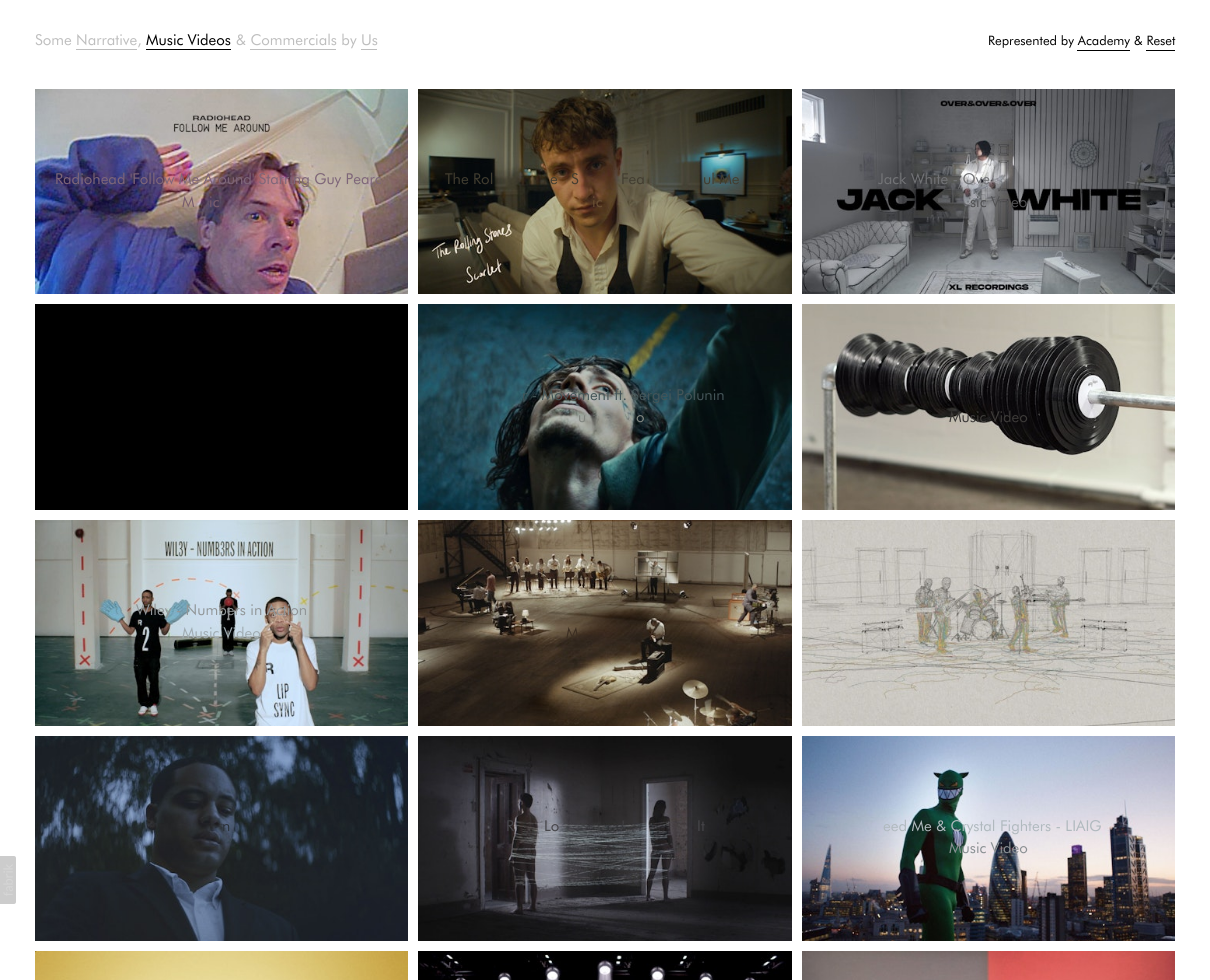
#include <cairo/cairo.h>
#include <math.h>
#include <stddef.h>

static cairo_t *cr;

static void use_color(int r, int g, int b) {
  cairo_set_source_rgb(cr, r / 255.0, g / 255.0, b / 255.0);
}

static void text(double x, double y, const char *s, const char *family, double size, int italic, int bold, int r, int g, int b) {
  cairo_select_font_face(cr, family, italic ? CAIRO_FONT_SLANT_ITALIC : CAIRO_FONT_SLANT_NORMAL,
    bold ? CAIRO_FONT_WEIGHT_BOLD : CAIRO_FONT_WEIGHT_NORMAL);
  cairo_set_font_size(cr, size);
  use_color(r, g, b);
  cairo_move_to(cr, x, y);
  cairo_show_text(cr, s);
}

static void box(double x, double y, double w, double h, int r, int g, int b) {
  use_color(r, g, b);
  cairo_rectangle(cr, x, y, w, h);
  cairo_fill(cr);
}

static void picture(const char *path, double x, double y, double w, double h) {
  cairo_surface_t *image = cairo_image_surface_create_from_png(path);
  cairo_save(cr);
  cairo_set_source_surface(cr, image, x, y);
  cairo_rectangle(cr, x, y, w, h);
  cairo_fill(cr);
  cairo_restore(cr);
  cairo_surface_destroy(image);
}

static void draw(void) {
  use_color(255, 255, 255);
  cairo_paint(cr);
  box(146, 49, 85, 1, 0, 0, 0);
  box(76, 49, 61, 1, 190, 190, 190);
  box(250, 49, 86, 1, 190, 190, 190);
  box(361, 49, 16, 1, 190, 190, 190);
  box(1077, 50, 53, 1, 0, 0, 0);
  box(1146, 50, 29, 1, 0, 0, 0);
  picture("img_01.png", 35, 89, 373, 205);
  picture("img_02.png", 418, 89, 374, 205);
  picture("img_03.png", 802, 89, 373, 205);
  box(35, 304, 373, 206, 0, 0, 0);
  picture("img_04.png", 418, 304, 374, 206);
  picture("img_05.png", 802, 304, 373, 206);
  picture("img_06.png", 35, 520, 373, 206);
  picture("img_07.png", 418, 520, 374, 206);
  picture("img_08.png", 802, 520, 373, 206);
  picture("img_09.png", 35, 736, 373, 205);
  picture("img_10.png", 418, 736, 374, 205);
  picture("img_11.png", 802, 736, 373, 205);
  picture("img_12.png", 35, 951, 373, 29);
  box(418, 951, 374, 29, 0, 0, 0);
  picture("img_13.png", 419, 951, 367, 29);
  picture("img_14.png", 802, 951, 373, 29);
  picture("img_15.png", 0, 856, 16, 48);
  text(35, 45, "Some Narrative,", "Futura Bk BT", 15, 0, 0, 190, 190, 190);
  text(146, 45, "Music Videos", "Futura Bk BT", 15, 0, 0, 0, 0, 0);
  text(236, 45, "& Commercials by Us", "Futura Bk BT", 15, 0, 0, 190, 190, 190);
  text(988, 45, "Represented by Academy & Reset", "Futura Bk BT", 13, 0, 0, 0, 0, 0);
  text(55, 184, "Radiohead 'Follow Me Around' Starring Guy Pearc", "Futura Bk BT", 15, 0, 0, 126, 102, 121);
  text(182, 207, "M", "Futura Bk BT", 15, 0, 0, 120, 93, 109);
  text(209, 207, "ic", "Futura Bk BT", 15, 0, 0, 120, 93, 109);
  text(445, 184, "The Rol", "Futura Bk BT", 15, 0, 0, 66, 61, 48);
  text(550, 184, "e", "Futura Bk BT", 15, 0, 0, 66, 61, 48);
  text(571, 184, "S", "Futura Bk BT", 15, 0, 0, 66, 61, 48);
  text(621, 184, "Fea", "Futura Bk BT", 15, 0, 0, 66, 61, 48);
  text(703, 184, "ul Me", "Futura Bk BT", 15, 0, 0, 66, 61, 48);
  text(592, 207, "ic", "Futura Bk BT", 15, 0, 0, 104, 79, 52);
  text(878, 184, "Jack White - Ove", "Futura Bk BT", 15, 0, 0, 114, 115, 118);
  text(970, 207, "sic V", "Futura Bk BT", 15, 0, 0, 81, 81, 83);
  text(1011, 207, "eo", "Futura Bk BT", 15, 0, 0, 81, 81, 83);
  text(522, 400, "r - Movement ft. Sergei Polunin", "Futura Bk BT", 15, 0, 0, 68, 85, 88);
  text(578, 422, "u", "Futura Bk BT", 15, 0, 0, 129, 133, 128);
  text(636, 422, "o", "Futura Bk BT", 15, 0, 0, 129, 133, 128);
  text(949, 422, "Music Video", "Futura Bk BT", 15, 0, 0, 61, 59, 57);
  text(136, 615, "Wiley - Numbers in Action", "Futura Bk BT", 15, 0, 0, 145, 150, 152);
  text(182, 638, "Music Video", "Futura Bk BT", 15, 0, 0, 160, 172, 178);
  text(566, 638, "M", "Futura Bk BT", 15, 0, 0, 60, 46, 34);
  text(222, 831, "n", "Futura Bk BT", 15, 0, 0, 42, 48, 56);
  text(506, 831, "R", "Futura Bk BT", 15, 0, 0, 70, 69, 73);
  text(544, 831, "Lo", "Futura Bk BT", 15, 0, 0, 70, 69, 73);
  text(622, 831, "'", "Futura Bk BT", 15, 0, 0, 70, 69, 73);
  text(697, 831, "It", "Futura Bk BT", 15, 0, 0, 70, 69, 73);
  text(883, 831, "eed Me & Crystal Fighters - LIAIG", "Futura Bk BT", 15, 0, 0, 176, 185, 190);
  text(949, 853, "Music Video", "Futura Bk BT", 15, 0, 0, 138, 144, 147);
}

int main(void) {
  cairo_surface_t *surface = cairo_image_surface_create(CAIRO_FORMAT_RGB24, 1210, 980);
  cr = cairo_create(surface);
  cairo_font_options_t *options = cairo_font_options_create();
  cairo_font_options_set_hint_metrics(options, CAIRO_HINT_METRICS_OFF);
  cairo_font_options_set_hint_style(options, CAIRO_HINT_STYLE_NONE);
  cairo_set_font_options(cr, options);
  cairo_set_miter_limit(cr, 4);
  draw();
  cairo_surface_write_to_png(surface, "out.png");
  cairo_font_options_destroy(options);
  cairo_destroy(cr);
  cairo_surface_destroy(surface);
  return 0;
}
